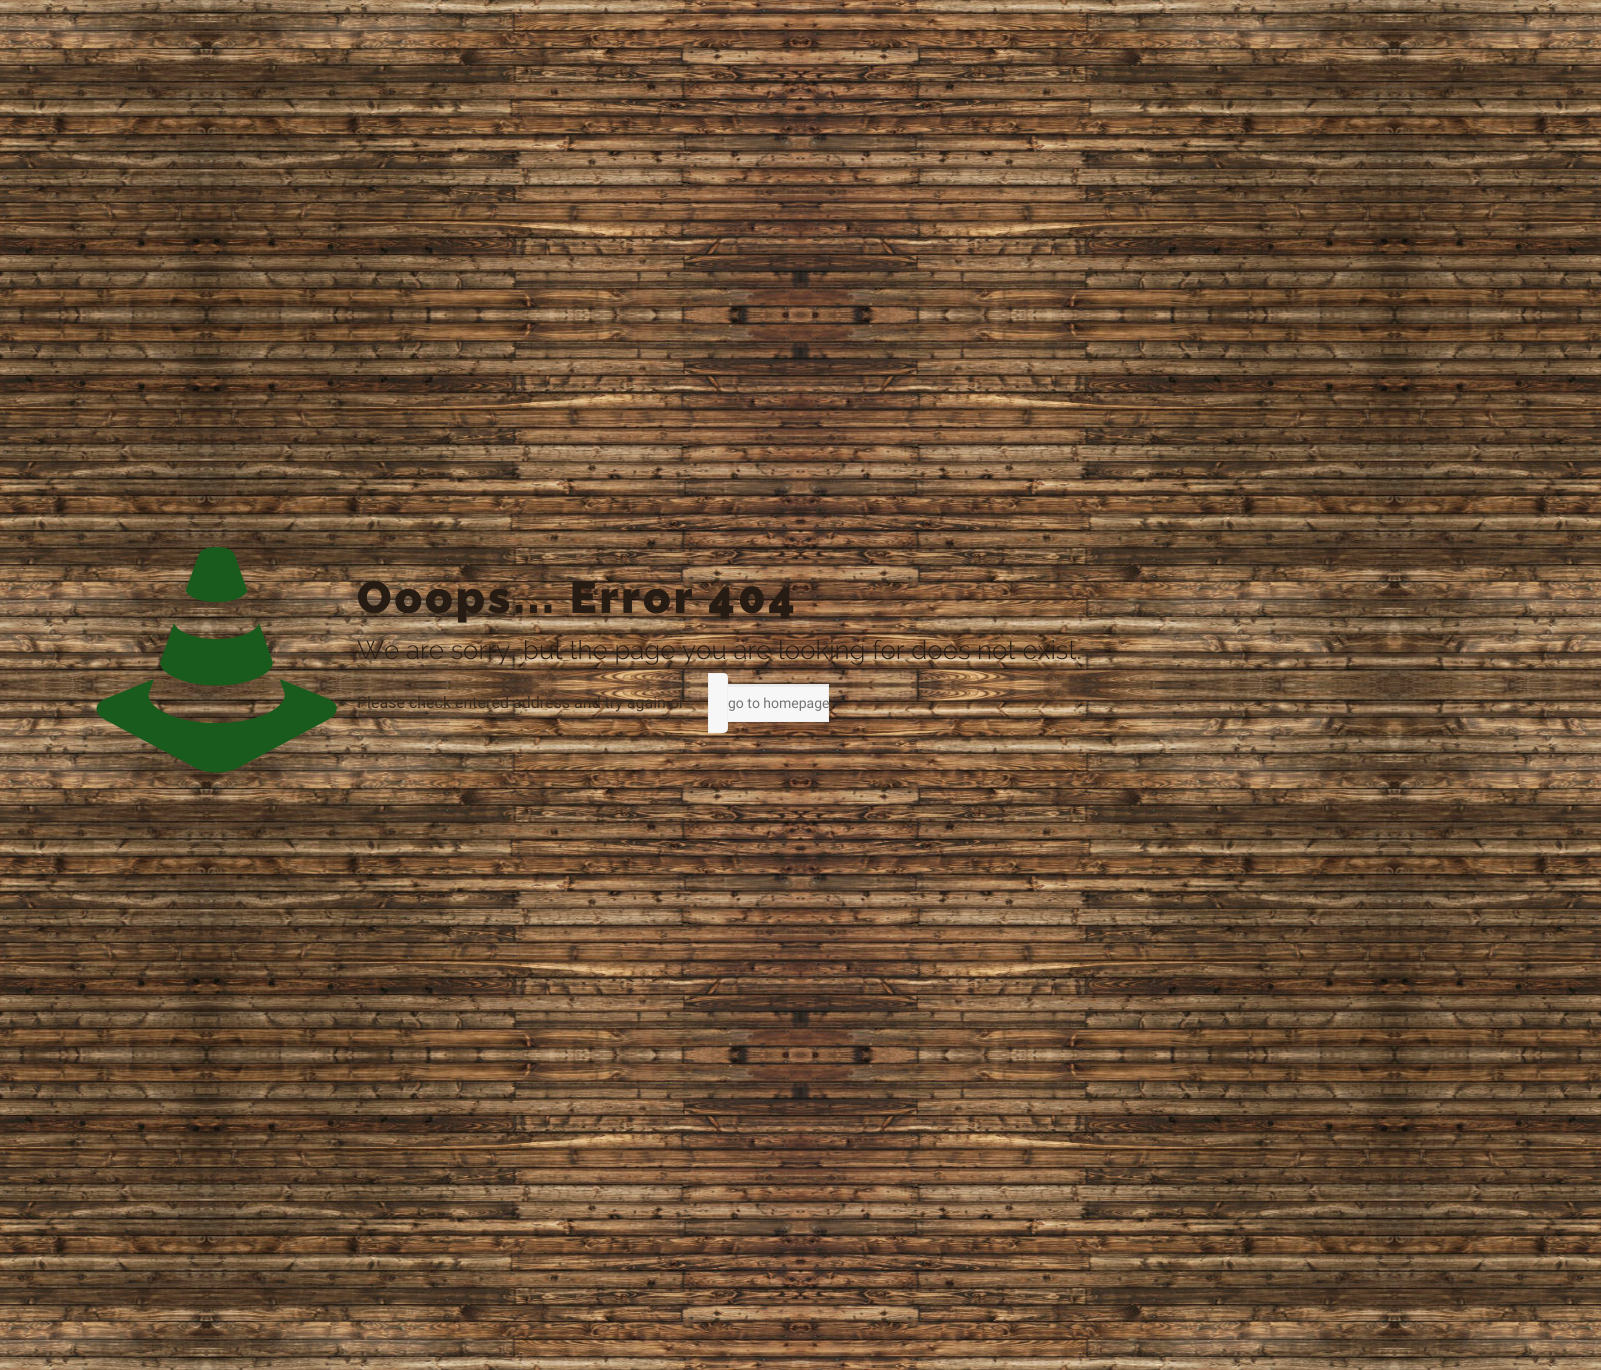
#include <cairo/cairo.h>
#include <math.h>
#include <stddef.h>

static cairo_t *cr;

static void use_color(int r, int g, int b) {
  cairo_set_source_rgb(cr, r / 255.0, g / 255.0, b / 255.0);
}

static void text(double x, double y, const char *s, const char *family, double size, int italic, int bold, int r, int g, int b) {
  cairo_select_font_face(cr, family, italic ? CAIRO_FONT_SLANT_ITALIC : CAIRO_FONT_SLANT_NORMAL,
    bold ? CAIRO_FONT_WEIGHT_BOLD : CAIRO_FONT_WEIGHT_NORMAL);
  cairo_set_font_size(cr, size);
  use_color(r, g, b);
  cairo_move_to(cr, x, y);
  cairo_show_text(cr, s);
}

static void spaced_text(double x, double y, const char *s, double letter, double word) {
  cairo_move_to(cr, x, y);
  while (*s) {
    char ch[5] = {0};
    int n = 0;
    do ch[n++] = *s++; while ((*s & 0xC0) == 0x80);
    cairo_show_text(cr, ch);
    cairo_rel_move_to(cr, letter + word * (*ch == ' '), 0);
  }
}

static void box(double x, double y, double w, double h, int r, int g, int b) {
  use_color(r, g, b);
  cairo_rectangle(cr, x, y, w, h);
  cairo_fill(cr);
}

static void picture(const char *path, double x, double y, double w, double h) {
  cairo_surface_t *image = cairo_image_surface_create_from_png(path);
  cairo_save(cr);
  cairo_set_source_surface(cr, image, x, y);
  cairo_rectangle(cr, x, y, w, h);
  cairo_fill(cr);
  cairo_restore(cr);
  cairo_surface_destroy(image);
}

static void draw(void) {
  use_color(255, 255, 255);
  cairo_paint(cr);
  picture("img_01.png", 0, 0, 1601, 1370);
  picture("img_02.png", 96, 547, 241, 226);
  box(728, 684, 101, 38, 247, 247, 247);
  cairo_set_source_rgba(cr, 0, 0, 0, 0.05);
  cairo_rectangle(cr, 728, 684, 118, 3);
  cairo_fill(cr);
  cairo_rectangle(cr, 708.5, 684.5, 120, 37);
  cairo_set_source_rgba(cr, 0, 0, 0, 0.03);
  cairo_set_line_width(cr, 1);
  cairo_stroke(cr);
  use_color(247, 247, 247);
  cairo_new_path(cr);
  cairo_move_to(cr, 708, 673);
  cairo_line_to(cr, 723, 673);
  cairo_curve_to(cr, 726, 673, 728, 675, 728, 678);
  cairo_line_to(cr, 728, 728);
  cairo_curve_to(cr, 728, 731, 726, 733, 723, 733);
  cairo_line_to(cr, 708, 733);
  cairo_close_path(cr);
  cairo_fill(cr);
  cairo_rectangle(cr, 708.5, 673.5, 19, 59);
  cairo_set_source_rgba(cr, 0, 0, 0, 0.03);
  cairo_stroke(cr);
  cairo_select_font_face(cr, "Raleway Black", CAIRO_FONT_SLANT_NORMAL, CAIRO_FONT_WEIGHT_NORMAL);
  cairo_set_font_size(cr, 45);
  use_color(38, 28, 19);
  spaced_text(357, 613, "Ooops... Error 404", 3, 0);
  text(357, 659, "We are sorry, but the page you are looking for does not exist.", "Raleway Light", 26, 0, 0, 38, 28, 19);
  text(357, 708, "Please check entered address and try again or", "Roboto", 16, 0, 0, 57, 43, 30);
  text(728, 708, "go to homepage", "Roboto", 14, 0, 0, 116, 116, 116);
}

int main(void) {
  cairo_surface_t *surface = cairo_image_surface_create(CAIRO_FORMAT_RGB24, 1601, 1370);
  cr = cairo_create(surface);
  cairo_font_options_t *options = cairo_font_options_create();
  cairo_font_options_set_hint_metrics(options, CAIRO_HINT_METRICS_OFF);
  cairo_font_options_set_hint_style(options, CAIRO_HINT_STYLE_NONE);
  cairo_set_font_options(cr, options);
  cairo_set_miter_limit(cr, 4);
  draw();
  cairo_surface_write_to_png(surface, "out.png");
  cairo_font_options_destroy(options);
  cairo_destroy(cr);
  cairo_surface_destroy(surface);
  return 0;
}
